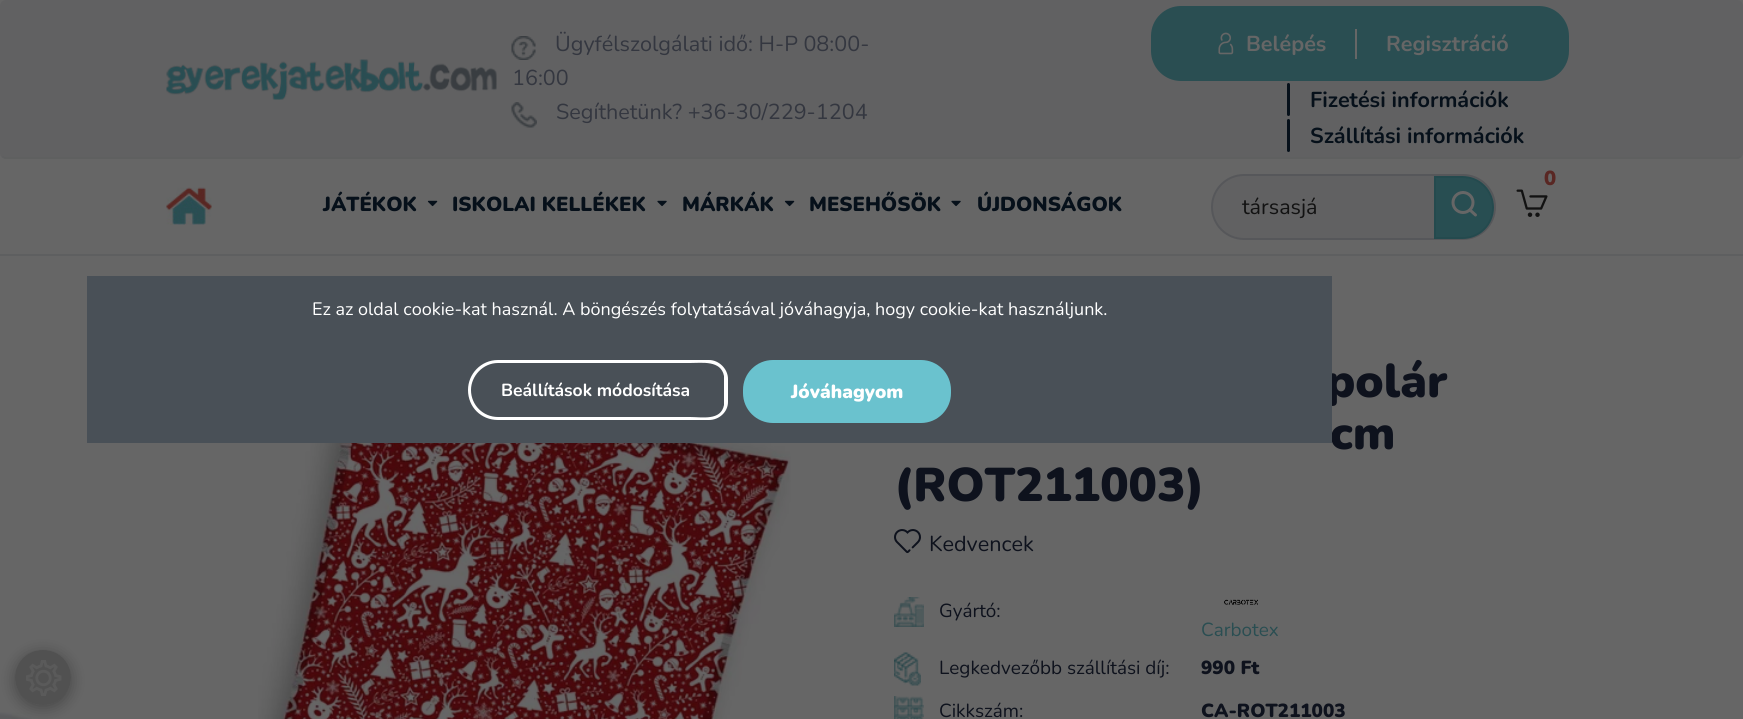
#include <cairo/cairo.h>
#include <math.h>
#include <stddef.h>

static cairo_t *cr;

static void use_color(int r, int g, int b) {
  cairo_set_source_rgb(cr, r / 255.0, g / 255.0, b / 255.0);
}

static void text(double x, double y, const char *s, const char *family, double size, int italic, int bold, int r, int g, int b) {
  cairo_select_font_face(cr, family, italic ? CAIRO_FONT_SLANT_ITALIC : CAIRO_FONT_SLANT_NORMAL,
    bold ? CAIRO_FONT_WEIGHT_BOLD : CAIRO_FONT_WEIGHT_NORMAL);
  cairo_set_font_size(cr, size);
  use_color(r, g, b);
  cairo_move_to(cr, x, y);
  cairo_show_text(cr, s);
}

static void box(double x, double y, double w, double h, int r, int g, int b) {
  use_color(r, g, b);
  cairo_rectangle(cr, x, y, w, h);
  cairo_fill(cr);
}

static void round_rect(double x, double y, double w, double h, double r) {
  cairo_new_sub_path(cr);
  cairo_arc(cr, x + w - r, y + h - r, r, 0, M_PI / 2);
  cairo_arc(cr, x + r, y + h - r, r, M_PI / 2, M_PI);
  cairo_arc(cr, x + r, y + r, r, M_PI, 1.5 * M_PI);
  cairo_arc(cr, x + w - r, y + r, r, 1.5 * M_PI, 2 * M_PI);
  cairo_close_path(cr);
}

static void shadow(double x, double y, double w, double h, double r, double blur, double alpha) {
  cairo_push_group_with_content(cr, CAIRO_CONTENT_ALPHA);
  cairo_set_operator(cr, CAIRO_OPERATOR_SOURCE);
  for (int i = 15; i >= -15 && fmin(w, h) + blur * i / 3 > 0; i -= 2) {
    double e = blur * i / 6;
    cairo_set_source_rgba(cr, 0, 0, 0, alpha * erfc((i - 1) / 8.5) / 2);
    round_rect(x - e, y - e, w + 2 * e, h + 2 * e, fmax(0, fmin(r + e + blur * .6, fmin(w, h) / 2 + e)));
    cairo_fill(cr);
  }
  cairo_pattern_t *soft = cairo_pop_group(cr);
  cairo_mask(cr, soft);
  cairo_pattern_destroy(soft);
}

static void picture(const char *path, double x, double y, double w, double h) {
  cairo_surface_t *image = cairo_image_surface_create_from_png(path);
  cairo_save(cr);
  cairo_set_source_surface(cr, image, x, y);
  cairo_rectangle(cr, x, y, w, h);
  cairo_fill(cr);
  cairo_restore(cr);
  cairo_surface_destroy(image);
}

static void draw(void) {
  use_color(102, 102, 102);
  cairo_paint(cr);
  picture("img_02.png", 0, 712, 32, 7);
  cairo_save(cr);
  cairo_set_fill_rule(cr, CAIRO_FILL_RULE_EVEN_ODD);
  cairo_new_path(cr);
  cairo_move_to(cr, 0, 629);
  cairo_line_to(cr, 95, 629);
  cairo_line_to(cr, 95, 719);
  cairo_line_to(cr, 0, 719);
  cairo_close_path(cr);
  cairo_move_to(cr, 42.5, 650);
  cairo_line_to(cr, 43.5, 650);
  cairo_curve_to(cr, 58.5, 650, 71, 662.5, 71, 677.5);
  cairo_curve_to(cr, 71, 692.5, 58.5, 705, 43.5, 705);
  cairo_line_to(cr, 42.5, 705);
  cairo_curve_to(cr, 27.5, 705, 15, 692.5, 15, 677.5);
  cairo_curve_to(cr, 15, 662.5, 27.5, 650, 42.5, 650);
  cairo_close_path(cr);
  cairo_clip(cr);
  use_color(0, 0, 0);
  shadow(15, 653, 56, 55, 27.5, 7.5, 0.3);
  cairo_restore(cr);
  cairo_set_source_rgba(cr, 0.122, 0.122, 0.122, 0.3);
  round_rect(15, 650, 56, 55, 27.5);
  cairo_fill(cr);
  picture("img_01.png", 26, 660, 36, 36);
  use_color(97, 97, 98);
  round_rect(0, 0, 1743, 159, 6);
  cairo_fill(cr);
  cairo_new_path(cr);
  cairo_move_to(cr, 1740.5, 156.5);
  cairo_curve_to(cr, 1739.5, 157.5, 1738.5, 158, 1737, 158);
  cairo_line_to(cr, 6, 158);
  cairo_curve_to(cr, 4.5, 158, 3.5, 157.5, 2.5, 156.5);
  use_color(94, 95, 96);
  cairo_set_line_width(cr, 1.5);
  cairo_stroke(cr);
  picture("img_03.png", 166, 59, 331, 41);
  picture("img_04.png", 511, 36, 25, 24);
  picture("img_05.png", 511, 102, 26, 26);
  use_color(42, 78, 82);
  round_rect(1151, 6, 418, 75, 30);
  cairo_fill(cr);
  picture("img_06.png", 1218, 32, 16, 23);
  box(1355, 29, 2, 30, 102, 102, 102);
  use_color(6, 16, 26);
  round_rect(1287, 83, 3, 33, 1.5);
  cairo_fill(cr);
  round_rect(1287, 119, 3, 33, 1.5);
  cairo_fill(cr);
  box(0, 254, 1743, 2, 94, 95, 96);
  picture("img_07.png", 1516, 189, 32, 28);
  picture("img_08.png", 166, 187, 46, 38);
  picture("img_09.png", 427, 200, 11, 7);
  picture("img_10.png", 657, 200, 10, 7);
  picture("img_09.png", 784, 200, 11, 7);
  picture("img_10.png", 951, 200, 10, 7);
  use_color(97, 97, 98);
  round_rect(1212, 175, 283, 64, 32);
  cairo_fill_preserve(cr);
  use_color(86, 87, 90);
  cairo_set_line_width(cr, 2);
  cairo_stroke(cr);
  use_color(40, 78, 82);
  cairo_new_path(cr);
  cairo_move_to(cr, 1435, 177);
  cairo_line_to(cr, 1462.5, 177);
  cairo_curve_to(cr, 1479.5, 177, 1493, 190.5, 1493, 207.5);
  cairo_curve_to(cr, 1493, 224.5, 1479.5, 238, 1462.5, 238);
  cairo_line_to(cr, 1435, 238);
  cairo_close_path(cr);
  cairo_fill_preserve(cr);
  use_color(36, 74, 78);
  cairo_stroke(cr);
  cairo_arc(cr, 1463, 202.5, 10, 0, 2 * M_PI);
  use_color(102, 102, 102);
  cairo_set_line_width(cr, 3);
  cairo_stroke(cr);
  cairo_new_path(cr);
  cairo_move_to(cr, 1475.5, 215);
  cairo_line_to(cr, 1470, 210);
  cairo_set_line_cap(cr, CAIRO_LINE_CAP_ROUND);
  cairo_set_line_join(cr, CAIRO_LINE_JOIN_ROUND);
  cairo_stroke(cr);
  picture("img_11.png", 258, 443, 533, 276);
  picture("img_12.png", 894, 529, 27, 25);
  picture("img_13.png", 894, 597, 30, 30);
  picture("img_14.png", 1224, 599, 34, 6);
  picture("img_15.png", 894, 652, 27, 34);
  picture("img_16.png", 894, 696, 30, 23);
  text(555, 51, "Ügyfélszolgálati idő: H-P 08:00-", "Nunito", 21.6, 0, 0, 52, 55, 64);
  text(512, 85, "16:00", "Nunito", 21.6, 0, 0, 52, 55, 64);
  text(556, 119, "Segíthetünk? +36-30/229-1204", "Nunito", 21.6, 0, 0, 52, 55, 64);
  text(1246, 51, "Belépés", "Nunito", 21.6, 0, 1, 102, 102, 102);
  text(1386, 51, "Regisztráció", "Nunito", 21.6, 0, 1, 102, 102, 102);
  text(1310, 107, "Fizetési információk", "Nunito", 21.6, 0, 1, 6, 16, 26);
  text(1310, 143, "Szállítási információk", "Nunito", 21.6, 0, 1, 6, 16, 26);
  text(1544, 185, "0", "Nunito Black", 20.25, 0, 0, 89, 39, 35);
  text(323, 211, "JÁTÉKOK", "Nunito Black", 20.25, 0, 0, 6, 16, 26);
  text(452, 211, "ISKOLAI KELLÉKEK", "Nunito Black", 20.25, 0, 0, 6, 16, 26);
  text(682, 211, "MÁRKÁK", "Nunito Black", 20.25, 0, 0, 6, 16, 26);
  text(809, 211, "MESEHŐSÖK", "Nunito Black", 20.25, 0, 0, 6, 16, 26);
  text(977, 211, "ÚJDONSÁGOK", "Nunito Black", 20.25, 0, 0, 6, 16, 26);
  text(1242, 214, "társasjá", "Nunito", 21.6, 0, 0, 18, 18, 18);
  text(1326, 397, "polár", "Nunito Black", 47.25, 0, 0, 14, 18, 29);
  text(1330, 449, "cm", "Nunito Black", 47.25, 0, 0, 14, 18, 29);
  text(894, 501, "(ROT211003)", "Nunito Black", 47.25, 0, 0, 14, 18, 29);
  text(929, 551, "Kedvencek", "Nunito", 21.6, 0, 0, 14, 18, 29);
  text(939, 617, "Gyártó:", "Nunito", 18.9, 0, 0, 14, 18, 29);
  text(1201, 636, "Carbotex", "Nunito", 18.9, 0, 0, 42, 78, 82);
  text(939, 674, "Legkedvezőbb szállítási díj:", "Nunito", 18.9, 0, 0, 14, 18, 29);
  text(1201, 674, "990 Ft", "Nunito Black", 18.9, 0, 0, 14, 18, 29);
  text(939, 717, "Cikkszám:", "Nunito", 18.9, 0, 0, 14, 18, 29);
  text(1201, 717, "CA-ROT211003", "Nunito Black", 18.9, 0, 0, 14, 18, 29);
  box(87, 276, 1245, 167, 73, 80, 87);
  text(312, 315, "Ez az oldal cookie-kat használ. A böngészés folytatásával jóváhagyja, hogy cookie-kat használjunk.", "Nunito", 18, 0, 0, 255, 255, 255);
  cairo_set_fill_rule(cr, CAIRO_FILL_RULE_EVEN_ODD);
  cairo_new_path(cr);
  cairo_move_to(cr, 498, 360);
  cairo_line_to(cr, 690, 360);
  cairo_line_to(cr, 690, 420);
  cairo_line_to(cr, 498, 420);
  cairo_curve_to(cr, 481, 420, 468, 407, 468, 390);
  cairo_curve_to(cr, 468, 374, 481, 360, 498, 360);
  cairo_close_path(cr);
  cairo_move_to(cr, 498, 363);
  cairo_line_to(cr, 690, 363);
  cairo_line_to(cr, 690, 417);
  cairo_line_to(cr, 498, 417);
  cairo_curve_to(cr, 483, 417, 471, 405, 471, 390);
  cairo_curve_to(cr, 471, 376, 483, 363, 498, 363);
  cairo_close_path(cr);
  cairo_fill(cr);
  text(501, 396, "Beállítások módosítása", "Nunito", 17.5, 0, 1, 255, 255, 255);
  cairo_new_path(cr);
  cairo_move_to(cr, 690, 360);
  cairo_line_to(cr, 709, 360);
  cairo_curve_to(cr, 719, 360, 728, 369, 728, 379);
  cairo_line_to(cr, 728, 402);
  cairo_curve_to(cr, 728, 412, 719, 420, 709, 420);
  cairo_line_to(cr, 690, 420);
  cairo_close_path(cr);
  cairo_move_to(cr, 690, 363);
  cairo_curve_to(cr, 702, 363, 721, 360, 724, 376);
  cairo_line_to(cr, 724, 405);
  cairo_curve_to(cr, 721, 421, 702, 417, 690, 417);
  cairo_close_path(cr);
  cairo_fill(cr);
  use_color(106, 194, 206);
  round_rect(743, 360, 208, 63, 30);
  cairo_fill(cr);
  text(791, 398, "Jóváhagyom", "Nunito Black", 18.9, 0, 0, 255, 255, 255);
}

int main(void) {
  cairo_surface_t *surface = cairo_image_surface_create(CAIRO_FORMAT_RGB24, 1743, 719);
  cr = cairo_create(surface);
  cairo_font_options_t *options = cairo_font_options_create();
  cairo_font_options_set_hint_metrics(options, CAIRO_HINT_METRICS_OFF);
  cairo_font_options_set_hint_style(options, CAIRO_HINT_STYLE_NONE);
  cairo_set_font_options(cr, options);
  cairo_set_miter_limit(cr, 4);
  draw();
  cairo_surface_write_to_png(surface, "out.png");
  cairo_font_options_destroy(options);
  cairo_destroy(cr);
  cairo_surface_destroy(surface);
  return 0;
}
